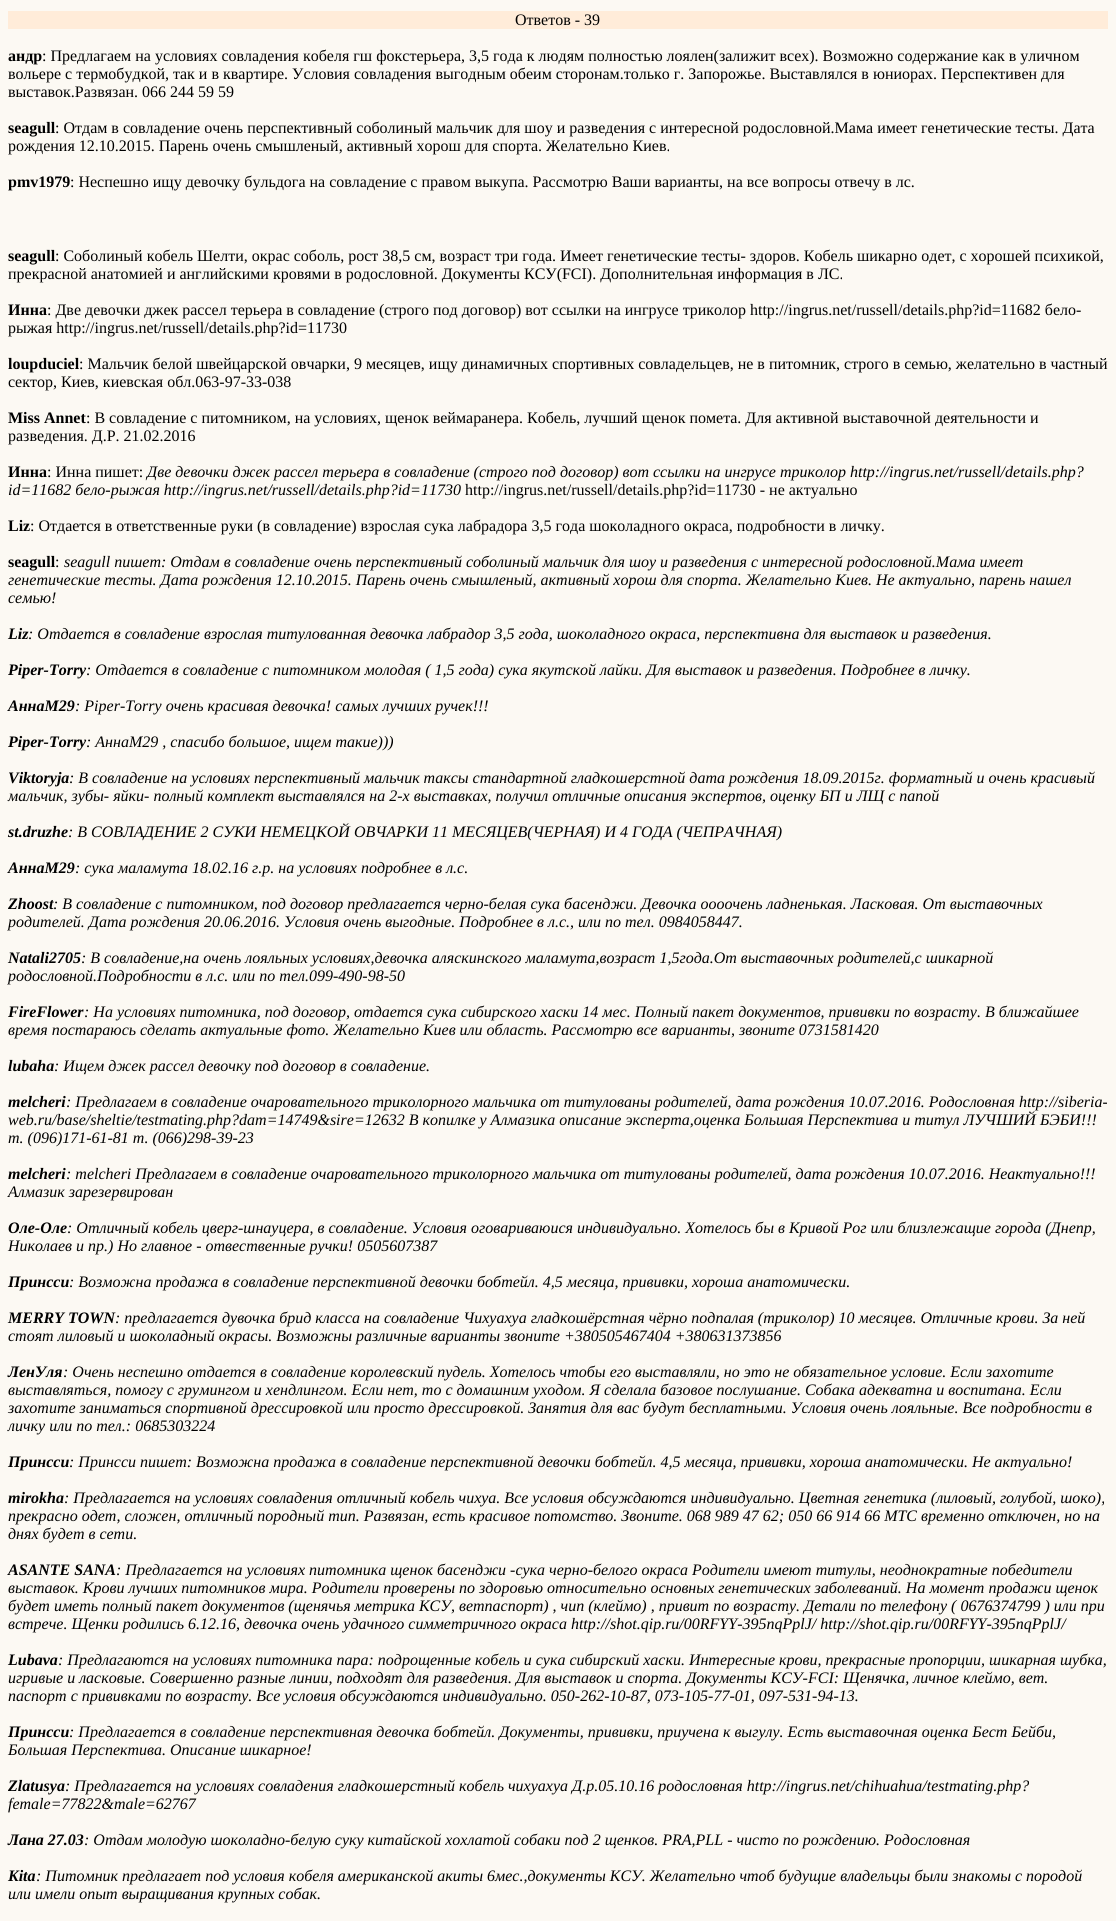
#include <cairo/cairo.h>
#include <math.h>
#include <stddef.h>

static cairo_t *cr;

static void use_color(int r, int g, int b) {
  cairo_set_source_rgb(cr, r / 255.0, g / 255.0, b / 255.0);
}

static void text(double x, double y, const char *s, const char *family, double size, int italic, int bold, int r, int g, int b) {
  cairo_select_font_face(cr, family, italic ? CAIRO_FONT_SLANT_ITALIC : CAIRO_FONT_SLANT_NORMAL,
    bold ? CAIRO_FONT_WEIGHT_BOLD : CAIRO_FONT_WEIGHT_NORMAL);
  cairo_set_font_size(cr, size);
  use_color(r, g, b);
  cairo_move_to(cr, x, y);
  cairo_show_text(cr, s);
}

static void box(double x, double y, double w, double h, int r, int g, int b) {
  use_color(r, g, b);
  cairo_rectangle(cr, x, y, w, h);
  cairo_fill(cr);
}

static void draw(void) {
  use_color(252, 249, 243);
  cairo_paint(cr);
  box(8, 11, 1100, 18, 255, 236, 217);
  text(515, 25, "Ответов - 39", "Liberation Serif", 16, 0, 0, 0, 0, 0);
  text(8, 61, "андр", "Liberation Serif", 16, 0, 1, 0, 0, 0);
  text(42, 61, ": Предлагаем на условиях совладения кобеля гш фокстерьера, 3,5 года к людям полностью лоялен(залижит всех). Возможно содержание как в уличном", "Liberation Serif", 16, 0, 0, 0, 0, 0);
  text(8, 79, "вольере с термобудкой, так и в квартире. Условия совладения выгодным обеим сторонам.только г. Запорожье. Выставлялся в юниорах. Перспективен для", "Liberation Serif", 16, 0, 0, 0, 0, 0);
  text(8, 97, "выставок.Развязан. 066 244 59 59", "Liberation Serif", 16, 0, 0, 0, 0, 0);
  text(8, 133, "seagull", "Liberation Serif", 16, 0, 1, 0, 0, 0);
  text(55, 133, ": Отдам в совладение очень перспективный соболиный мальчик для шоу и разведения с интересной родословной.Мама имеет генетические тесты. Дата", "Liberation Serif", 16, 0, 0, 0, 0, 0);
  text(8, 151, "рождения 12.10.2015. Парень очень смышленый, активный хорош для спорта. Желательно Киев.", "Liberation Serif", 16, 0, 0, 0, 0, 0);
  text(8, 187, "pmv1979", "Liberation Serif", 16, 0, 1, 0, 0, 0);
  text(70, 187, ": Неспешно ищу девочку бульдога на совладение с правом выкупа. Рассмотрю Ваши варианты, на все вопросы отвечу в лс.", "Liberation Serif", 16, 0, 0, 0, 0, 0);
  text(8, 261, "seagull", "Liberation Serif", 16, 0, 1, 0, 0, 0);
  text(55, 261, ": Соболиный кобель Шелти, окрас соболь, рост 38,5 см, возраст три года. Имеет генетические тесты- здоров. Кобель шикарно одет, с хорошей психикой,", "Liberation Serif", 16, 0, 0, 0, 0, 0);
  text(8, 279, "прекрасной анатомией и английскими кровями в родословной. Документы КСУ(FCI). Дополнительная информация в ЛС.", "Liberation Serif", 16, 0, 0, 0, 0, 0);
  text(8, 315, "Инна", "Liberation Serif", 16, 0, 1, 0, 0, 0);
  text(47, 315, ": Две девочки джек рассел терьера в совладение (строго под договор) вот ссылки на ингрусе триколор http://ingrus.net/russell/details.php?id=11682 бело-", "Liberation Serif", 16, 0, 0, 0, 0, 0);
  text(8, 333, "рыжая http://ingrus.net/russell/details.php?id=11730", "Liberation Serif", 16, 0, 0, 0, 0, 0);
  text(8, 369, "loupduciel", "Liberation Serif", 16, 0, 1, 0, 0, 0);
  text(79, 369, ": Мальчик белой швейцарской овчарки, 9 месяцев, ищу динамичных спортивных совладельцев, не в питомник, строго в семью, желательно в частный", "Liberation Serif", 16, 0, 0, 0, 0, 0);
  text(8, 387, "сектор, Киев, киевская обл.063-97-33-038", "Liberation Serif", 16, 0, 0, 0, 0, 0);
  text(8, 423, "Miss Annet", "Liberation Serif", 16, 0, 1, 0, 0, 0);
  text(86, 423, ": В совладение с питомником, на условиях, щенок веймаранера. Кобель, лучший щенок помета. Для активной выставочной деятельности и", "Liberation Serif", 16, 0, 0, 0, 0, 0);
  text(8, 441, "разведения. Д.Р. 21.02.2016", "Liberation Serif", 16, 0, 0, 0, 0, 0);
  text(8, 477, "Инна", "Liberation Serif", 16, 0, 1, 0, 0, 0);
  text(47, 477, ": Инна пишет:", "Liberation Serif", 16, 0, 0, 0, 0, 0);
  text(147, 477, "Две девочки джек рассел терьера в совладение (строго под договор) вот ссылки на ингрусе триколор http://ingrus.net/russell/details.php?", "Liberation Serif", 16, 1, 0, 0, 0, 0);
  text(8, 495, "id=11682 бело-рыжая http://ingrus.net/russell/details.php?id=11730", "Liberation Serif", 16, 1, 0, 0, 0, 0);
  text(465, 495, "http://ingrus.net/russell/details.php?id=11730 - не актуально", "Liberation Serif", 16, 0, 0, 0, 0, 0);
  text(8, 531, "Liz", "Liberation Serif", 16, 0, 1, 0, 0, 0);
  text(30, 531, ": Отдается в ответственные руки (в совладение) взрослая сука лабрадора 3,5 года шоколадного окраса, подробности в личку.", "Liberation Serif", 16, 0, 0, 0, 0, 0);
  text(8, 567, "seagull", "Liberation Serif", 16, 0, 1, 0, 0, 0);
  text(55, 567, ":", "Liberation Serif", 16, 0, 0, 0, 0, 0);
  text(64, 567, "seagull пишет: Отдам в совладение очень перспективный соболиный мальчик для шоу и разведения с интересной родословной.Мама имеет", "Liberation Serif", 16, 1, 0, 0, 0, 0);
  text(8, 585, "генетические тесты. Дата рождения 12.10.2015. Парень очень смышленый, активный хорош для спорта. Желательно Киев. Не актуально, парень нашел", "Liberation Serif", 16, 1, 0, 0, 0, 0);
  text(8, 603, "семью!", "Liberation Serif", 16, 1, 0, 0, 0, 0);
  text(8, 639, "Liz", "Liberation Serif", 16, 1, 1, 0, 0, 0);
  text(28, 639, ": Отдается в совладение взрослая титулованная девочка лабрадор 3,5 года, шоколадного окраса, перспективна для выставок и разведения.", "Liberation Serif", 16, 1, 0, 0, 0, 0);
  text(8, 675, "Piper-Torry", "Liberation Serif", 16, 1, 1, 0, 0, 0);
  text(86, 675, ": Отдается в совладение с питомником молодая ( 1,5 года) сука якутской лайки. Для выставок и разведения. Подробнее в личку.", "Liberation Serif", 16, 1, 0, 0, 0, 0);
  text(8, 711, "АннаМ29", "Liberation Serif", 16, 1, 1, 0, 0, 0);
  text(75, 711, ": Piper-Torry очень красивая девочка! самых лучших ручек!!!", "Liberation Serif", 16, 1, 0, 0, 0, 0);
  text(8, 747, "Piper-Torry", "Liberation Serif", 16, 1, 1, 0, 0, 0);
  text(86, 747, ": АннаМ29 , спасибо большое, ищем такие)))", "Liberation Serif", 16, 1, 0, 0, 0, 0);
  text(8, 783, "Viktoryja", "Liberation Serif", 16, 1, 1, 0, 0, 0);
  text(69, 783, ": В совладение на условиях перспективный мальчик таксы стандартной гладкошерстной дата рождения 18.09.2015г. форматный и очень красивый", "Liberation Serif", 16, 1, 0, 0, 0, 0);
  text(8, 801, "мальчик, зубы- яйки- полный комплект выставлялся на 2-х выставках, получил отличные описания экспертов, оценку БП и ЛЩ с папой", "Liberation Serif", 16, 1, 0, 0, 0, 0);
  text(8, 837, "st.druzhe", "Liberation Serif", 16, 1, 1, 0, 0, 0);
  text(68, 837, ": В СОВЛАДЕНИЕ 2 СУКИ НЕМЕЦКОЙ ОВЧАРКИ 11 МЕСЯЦЕВ(ЧЕРНАЯ) И 4 ГОДА (ЧЕПРАЧНАЯ)", "Liberation Serif", 16, 1, 0, 0, 0, 0);
  text(8, 873, "АннаМ29", "Liberation Serif", 16, 1, 1, 0, 0, 0);
  text(75, 873, ": сука маламута 18.02.16 г.р. на условиях подробнее в л.с.", "Liberation Serif", 16, 1, 0, 0, 0, 0);
  text(8, 909, "Zhoost", "Liberation Serif", 16, 1, 1, 0, 0, 0);
  text(53, 909, ": В совладение с питомником, под договор предлагается черно-белая сука басенджи. Девочка оооочень ладненькая. Ласковая. От выставочных", "Liberation Serif", 16, 1, 0, 0, 0, 0);
  text(8, 927, "родителей. Дата рождения 20.06.2016. Условия очень выгодные. Подробнее в л.с., или по тел. 0984058447.", "Liberation Serif", 16, 1, 0, 0, 0, 0);
  text(8, 963, "Natali2705", "Liberation Serif", 16, 1, 1, 0, 0, 0);
  text(81, 963, ": В совладение,на очень лояльных условиях,девочка аляскинского маламута,возраст 1,5года.От выставочных родителей,с шикарной", "Liberation Serif", 16, 1, 0, 0, 0, 0);
  text(8, 981, "родословной.Подробности в л.с. или по тел.099-490-98-50", "Liberation Serif", 16, 1, 0, 0, 0, 0);
  text(8, 1017, "FireFlower", "Liberation Serif", 16, 1, 1, 0, 0, 0);
  text(84, 1017, ": На условиях питомника, под договор, отдается сука сибирского хаски 14 мес. Полный пакет документов, прививки по возрасту. В ближайшее", "Liberation Serif", 16, 1, 0, 0, 0, 0);
  text(8, 1035, "время постараюсь сделать актуальные фото. Желательно Киев или область. Рассмотрю все варианты, звоните 0731581420", "Liberation Serif", 16, 1, 0, 0, 0, 0);
  text(8, 1071, "lubaha", "Liberation Serif", 16, 1, 1, 0, 0, 0);
  text(54, 1071, ": Ищем джек рассел девочку под договор в совладение.", "Liberation Serif", 16, 1, 0, 0, 0, 0);
  text(8, 1107, "melcheri", "Liberation Serif", 16, 1, 1, 0, 0, 0);
  text(66, 1107, ": Предлагаем в совладение очаровательного триколорного мальчика от титулованы родителей, дата рождения 10.07.2016. Родословная http://siberia-", "Liberation Serif", 16, 1, 0, 0, 0, 0);
  text(8, 1125, "web.ru/base/sheltie/testmating.php?dam=14749&sire=12632 В копилке у Алмазика описание эксперта,оценка Большая Перспектива и титул ЛУЧШИЙ БЭБИ!!!", "Liberation Serif", 16, 1, 0, 0, 0, 0);
  text(8, 1143, "т. (096)171-61-81 т. (066)298-39-23", "Liberation Serif", 16, 1, 0, 0, 0, 0);
  text(8, 1179, "melcheri", "Liberation Serif", 16, 1, 1, 0, 0, 0);
  text(66, 1179, ": melcheri Предлагаем в совладение очаровательного триколорного мальчика от титулованы родителей, дата рождения 10.07.2016. Неактуально!!!", "Liberation Serif", 16, 1, 0, 0, 0, 0);
  text(8, 1197, "Алмазик зарезервирован", "Liberation Serif", 16, 1, 0, 0, 0, 0);
  text(8, 1233, "Оле-Оле", "Liberation Serif", 16, 1, 1, 0, 0, 0);
  text(67, 1233, ": Отличный кобель цверг-шнауцера, в совладение. Условия оговариваюися индивидуально. Хотелось бы в Кривой Рог или близлежащие города (Днепр,", "Liberation Serif", 16, 1, 0, 0, 0, 0);
  text(8, 1251, "Николаев и пр.) Но главное - отвественные ручки! 0505607387", "Liberation Serif", 16, 1, 0, 0, 0, 0);
  text(8, 1287, "Принсси", "Liberation Serif", 16, 1, 1, 0, 0, 0);
  text(69, 1287, ": Возможна продажа в совладение перспективной девочки бобтейл. 4,5 месяца, прививки, хороша анатомически.", "Liberation Serif", 16, 1, 0, 0, 0, 0);
  text(8, 1323, "MERRY TOWN", "Liberation Serif", 16, 1, 1, 0, 0, 0);
  text(115, 1323, ": предлагается дувочка брид класса на совладение Чихуахуа гладкошёрстная чёрно подпалая (триколор) 10 месяцев. Отличные крови. За ней", "Liberation Serif", 16, 1, 0, 0, 0, 0);
  text(8, 1341, "стоят лиловый и шоколадный окрасы. Возможны различные варианты звоните +380505467404 +380631373856", "Liberation Serif", 16, 1, 0, 0, 0, 0);
  text(8, 1377, "ЛенУля", "Liberation Serif", 16, 1, 1, 0, 0, 0);
  text(63, 1377, ": Очень неспешно отдается в совладение королевский пудель. Хотелось чтобы его выставляли, но это не обязательное условие. Если захотите", "Liberation Serif", 16, 1, 0, 0, 0, 0);
  text(8, 1395, "выставляться, помогу с грумингом и хендлингом. Если нет, то с домашним уходом. Я сделала базовое послушание. Собака адекватна и воспитана. Если", "Liberation Serif", 16, 1, 0, 0, 0, 0);
  text(8, 1413, "захотите заниматься спортивной дрессировкой или просто дрессировкой. Занятия для вас будут бесплатными. Условия очень лояльные. Все подробности в", "Liberation Serif", 16, 1, 0, 0, 0, 0);
  text(8, 1431, "личку или по тел.: 0685303224", "Liberation Serif", 16, 1, 0, 0, 0, 0);
  text(8, 1467, "Принсси", "Liberation Serif", 16, 1, 1, 0, 0, 0);
  text(69, 1467, ": Принсси пишет: Возможна продажа в совладение перспективной девочки бобтейл. 4,5 месяца, прививки, хороша анатомически. Не актуально!", "Liberation Serif", 16, 1, 0, 0, 0, 0);
  text(8, 1503, "mirokha", "Liberation Serif", 16, 1, 1, 0, 0, 0);
  text(64, 1503, ": Предлагается на условиях совладения отличный кобель чихуа. Все условия обсуждаются индивидуально. Цветная генетика (лиловый, голубой, шоко),", "Liberation Serif", 16, 1, 0, 0, 0, 0);
  text(8, 1521, "прекрасно одет, сложен, отличный породный тип. Развязан, есть красивое потомство. Звоните. 068 989 47 62; 050 66 914 66 МТС временно отключен, но на", "Liberation Serif", 16, 1, 0, 0, 0, 0);
  text(8, 1539, "днях будет в сети.", "Liberation Serif", 16, 1, 0, 0, 0, 0);
  text(8, 1575, "ASANTE SANA", "Liberation Serif", 16, 1, 1, 0, 0, 0);
  text(116, 1575, ": Предлагается на условиях питомника щенок басенджи -сука черно-белого окраса Родители имеют титулы, неоднократные победители", "Liberation Serif", 16, 1, 0, 0, 0, 0);
  text(8, 1593, "выставок. Крови лучших питомников мира. Родители проверены по здоровью относительно основных генетических заболеваний. На момент продажи щенок", "Liberation Serif", 16, 1, 0, 0, 0, 0);
  text(8, 1611, "будет иметь полный пакет документов (щенячья метрика КСУ, ветпаспорт) , чип (клеймо) , привит по возрасту. Детали по телефону ( 0676374799 ) или при", "Liberation Serif", 16, 1, 0, 0, 0, 0);
  text(8, 1629, "встрече. Щенки родились 6.12.16, девочка очень удачного симметричного окраса http://shot.qip.ru/00RFYY-395nqPplJ/ http://shot.qip.ru/00RFYY-395nqPplJ/", "Liberation Serif", 16, 1, 0, 0, 0, 0);
  text(8, 1665, "Lubava", "Liberation Serif", 16, 1, 1, 0, 0, 0);
  text(58, 1665, ": Предлагаются на условиях питомника пара: подрощенные кобель и сука сибирский хаски. Интересные крови, прекрасные пропорции, шикарная шубка,", "Liberation Serif", 16, 1, 0, 0, 0, 0);
  text(8, 1683, "игривые и ласковые. Совершенно разные линии, подходят для разведения. Для выставок и спорта. Документы КСУ-FCI: Щенячка, личное клеймо, вет.", "Liberation Serif", 16, 1, 0, 0, 0, 0);
  text(8, 1701, "паспорт с прививками по возрасту. Все условия обсуждаются индивидуально. 050-262-10-87, 073-105-77-01, 097-531-94-13.", "Liberation Serif", 16, 1, 0, 0, 0, 0);
  text(8, 1737, "Принсси", "Liberation Serif", 16, 1, 1, 0, 0, 0);
  text(69, 1737, ": Предлагается в совладение перспективная девочка бобтейл. Документы, прививки, приучена к выгулу. Есть выставочная оценка Бест Бейби,", "Liberation Serif", 16, 1, 0, 0, 0, 0);
  text(8, 1755, "Большая Перспектива. Описание шикарное!", "Liberation Serif", 16, 1, 0, 0, 0, 0);
  text(8, 1791, "Zlatusya", "Liberation Serif", 16, 1, 1, 0, 0, 0);
  text(65, 1791, ": Предлагается на условиях совладения гладкошерстный кобель чихуахуа Д.р.05.10.16 родословная http://ingrus.net/chihuahua/testmating.php?", "Liberation Serif", 16, 1, 0, 0, 0, 0);
  text(8, 1809, "female=77822&male=62767", "Liberation Serif", 16, 1, 0, 0, 0, 0);
  text(8, 1845, "Лана 27.03", "Liberation Serif", 16, 1, 1, 0, 0, 0);
  text(84, 1845, ": Отдам молодую шоколадно-белую суку китайской хохлатой собаки под 2 щенков. PRA,PLL - чисто по рождению. Родословная", "Liberation Serif", 16, 1, 0, 0, 0, 0);
  text(8, 1881, "Kita", "Liberation Serif", 16, 1, 1, 0, 0, 0);
  text(36, 1881, ": Питомник предлагает под условия кобеля американской акиты 6мес.,документы КСУ. Желательно чтоб будущие владельцы были знакомы с породой", "Liberation Serif", 16, 1, 0, 0, 0, 0);
  text(8, 1899, "или имели опыт выращивания крупных собак.", "Liberation Serif", 16, 1, 0, 0, 0, 0);
}

int main(void) {
  cairo_surface_t *surface = cairo_image_surface_create(CAIRO_FORMAT_RGB24, 1116, 1921);
  cr = cairo_create(surface);
  cairo_font_options_t *options = cairo_font_options_create();
  cairo_font_options_set_hint_metrics(options, CAIRO_HINT_METRICS_OFF);
  cairo_font_options_set_hint_style(options, CAIRO_HINT_STYLE_NONE);
  cairo_set_font_options(cr, options);
  cairo_set_miter_limit(cr, 4);
  draw();
  cairo_surface_write_to_png(surface, "out.png");
  cairo_font_options_destroy(options);
  cairo_destroy(cr);
  cairo_surface_destroy(surface);
  return 0;
}
